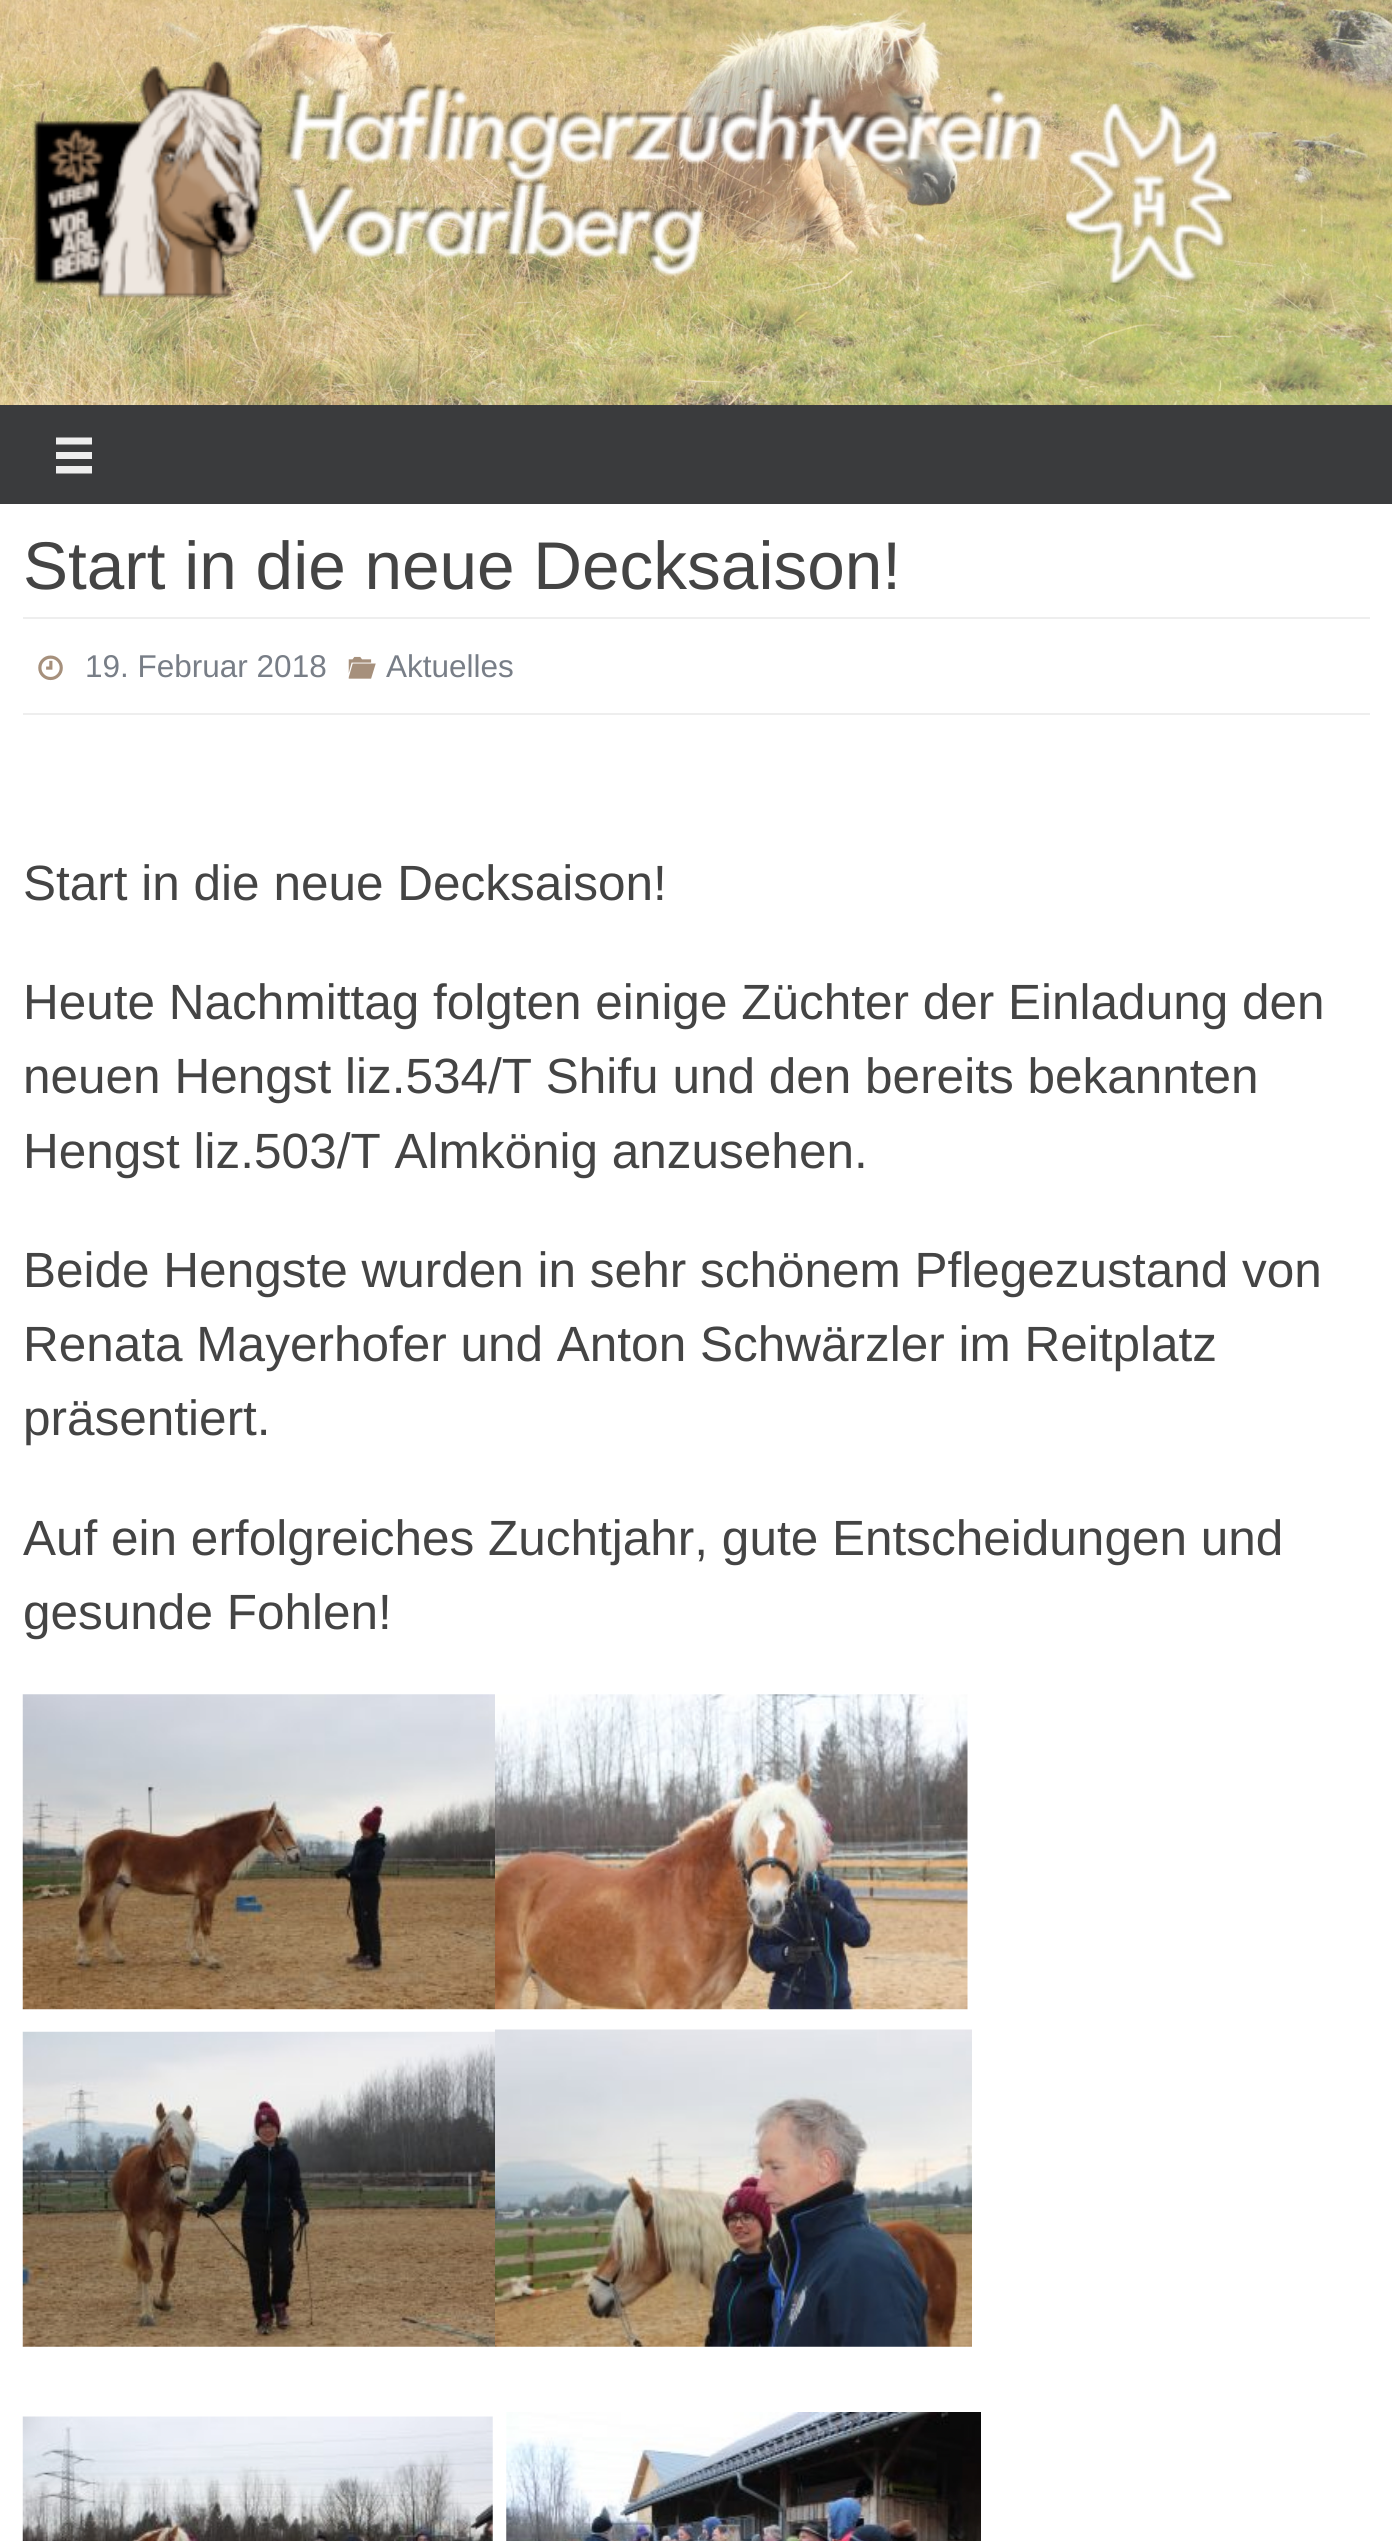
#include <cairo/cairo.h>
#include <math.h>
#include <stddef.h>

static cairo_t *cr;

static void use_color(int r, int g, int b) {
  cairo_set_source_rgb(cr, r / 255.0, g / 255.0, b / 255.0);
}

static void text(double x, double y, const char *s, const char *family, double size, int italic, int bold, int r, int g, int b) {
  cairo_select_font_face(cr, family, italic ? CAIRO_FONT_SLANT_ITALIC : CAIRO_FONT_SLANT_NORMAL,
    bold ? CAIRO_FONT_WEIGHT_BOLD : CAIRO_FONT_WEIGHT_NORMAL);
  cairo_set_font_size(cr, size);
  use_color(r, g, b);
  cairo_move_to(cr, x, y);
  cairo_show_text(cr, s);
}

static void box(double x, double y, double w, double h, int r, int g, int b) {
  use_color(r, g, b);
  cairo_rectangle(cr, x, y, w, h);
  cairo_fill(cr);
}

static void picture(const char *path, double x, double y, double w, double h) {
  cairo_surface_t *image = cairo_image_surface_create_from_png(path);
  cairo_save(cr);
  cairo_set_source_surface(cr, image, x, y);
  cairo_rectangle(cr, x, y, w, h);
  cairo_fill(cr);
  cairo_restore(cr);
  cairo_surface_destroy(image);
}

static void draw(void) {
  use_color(255, 255, 255);
  cairo_paint(cr);
  picture("img_01.png", 0, 0, 1392, 405);
  picture("img_02.png", 32, 59, 1206, 241);
  box(0, 405, 1392, 99, 58, 59, 61);
  use_color(238, 238, 238);
  cairo_new_path(cr);
  cairo_move_to(cr, 56, 437.5);
  cairo_line_to(cr, 56, 444.5);
  cairo_line_to(cr, 92, 444.5);
  cairo_line_to(cr, 92, 437.5);
  cairo_close_path(cr);
  cairo_move_to(cr, 56, 452);
  cairo_line_to(cr, 56, 459);
  cairo_line_to(cr, 92, 459);
  cairo_line_to(cr, 92, 452);
  cairo_close_path(cr);
  cairo_move_to(cr, 56, 466);
  cairo_line_to(cr, 56, 473.5);
  cairo_line_to(cr, 92, 473.5);
  cairo_line_to(cr, 92, 466);
  cairo_close_path(cr);
  cairo_fill(cr);
  box(23, 617, 1347, 2, 238, 238, 238);
  box(23, 713, 1347, 2, 238, 238, 238);
  picture("img_03.png", 38, 655, 25, 26);
  picture("img_04.png", 348, 656, 28, 23);
  picture("img_05.png", 22, 1694, 473, 316);
  picture("img_06.png", 495, 1694, 473, 316);
  picture("img_07.png", 22, 2031, 473, 316);
  picture("img_08.png", 495, 2029, 477, 318);
  picture("img_09.png", 22, 2416, 471, 125);
  picture("img_10.png", 506, 2412, 475, 129);
  text(23, 589, "Start in die neue Decksaison!", "Liberation Sans", 67.5, 0, 0, 68, 68, 68);
  text(85, 677, "19. Februar 2018", "Liberation Sans", 31.5, 0, 0, 120, 126, 135);
  text(386, 677, "Aktuelles", "Liberation Sans", 31.5, 0, 0, 120, 126, 135);
  text(23, 900, "Start in die neue Decksaison!", "Liberation Sans", 49.5, 0, 0, 68, 68, 68);
  text(23, 1019, "Heute Nachmittag folgten einige Züchter der Einladung den", "Liberation Sans", 49.5, 0, 0, 68, 68, 68);
  text(23, 1093, "neuen Hengst liz.534/T Shifu und den bereits bekannten", "Liberation Sans", 49.5, 0, 0, 68, 68, 68);
  text(23, 1168, "Hengst liz.503/T Almkönig anzusehen.", "Liberation Sans", 49.5, 0, 0, 68, 68, 68);
  text(23, 1287, "Beide Hengste wurden in sehr schönem Pflegezustand von", "Liberation Sans", 49.5, 0, 0, 68, 68, 68);
  text(23, 1361, "Renata Mayerhofer und Anton Schwärzler im Reitplatz", "Liberation Sans", 49.5, 0, 0, 68, 68, 68);
  text(23, 1435, "präsentiert.", "Liberation Sans", 49.5, 0, 0, 68, 68, 68);
  text(23, 1555, "Auf ein erfolgreiches Zuchtjahr, gute Entscheidungen und", "Liberation Sans", 49.5, 0, 0, 68, 68, 68);
  text(23, 1629, "gesunde Fohlen!", "Liberation Sans", 49.5, 0, 0, 68, 68, 68);
}

int main(void) {
  cairo_surface_t *surface = cairo_image_surface_create(CAIRO_FORMAT_RGB24, 1392, 2541);
  cr = cairo_create(surface);
  cairo_font_options_t *options = cairo_font_options_create();
  cairo_font_options_set_hint_metrics(options, CAIRO_HINT_METRICS_OFF);
  cairo_font_options_set_hint_style(options, CAIRO_HINT_STYLE_NONE);
  cairo_set_font_options(cr, options);
  cairo_set_miter_limit(cr, 4);
  draw();
  cairo_surface_write_to_png(surface, "out.png");
  cairo_font_options_destroy(options);
  cairo_destroy(cr);
  cairo_surface_destroy(surface);
  return 0;
}
